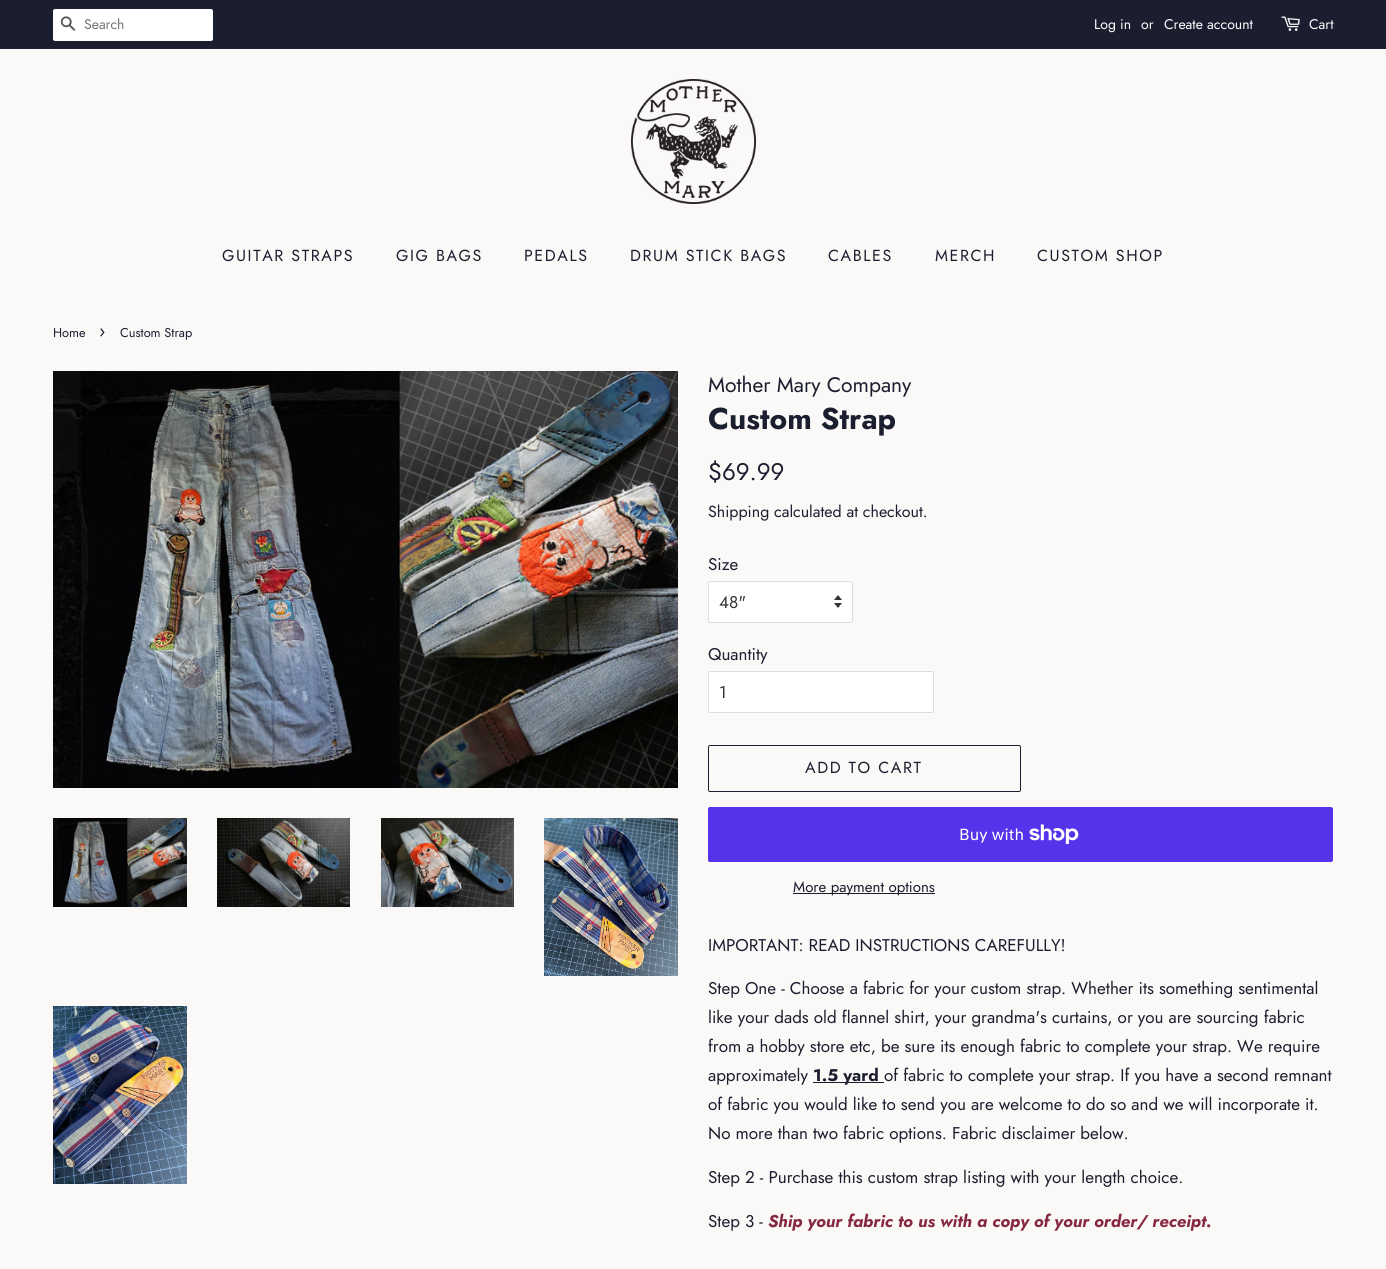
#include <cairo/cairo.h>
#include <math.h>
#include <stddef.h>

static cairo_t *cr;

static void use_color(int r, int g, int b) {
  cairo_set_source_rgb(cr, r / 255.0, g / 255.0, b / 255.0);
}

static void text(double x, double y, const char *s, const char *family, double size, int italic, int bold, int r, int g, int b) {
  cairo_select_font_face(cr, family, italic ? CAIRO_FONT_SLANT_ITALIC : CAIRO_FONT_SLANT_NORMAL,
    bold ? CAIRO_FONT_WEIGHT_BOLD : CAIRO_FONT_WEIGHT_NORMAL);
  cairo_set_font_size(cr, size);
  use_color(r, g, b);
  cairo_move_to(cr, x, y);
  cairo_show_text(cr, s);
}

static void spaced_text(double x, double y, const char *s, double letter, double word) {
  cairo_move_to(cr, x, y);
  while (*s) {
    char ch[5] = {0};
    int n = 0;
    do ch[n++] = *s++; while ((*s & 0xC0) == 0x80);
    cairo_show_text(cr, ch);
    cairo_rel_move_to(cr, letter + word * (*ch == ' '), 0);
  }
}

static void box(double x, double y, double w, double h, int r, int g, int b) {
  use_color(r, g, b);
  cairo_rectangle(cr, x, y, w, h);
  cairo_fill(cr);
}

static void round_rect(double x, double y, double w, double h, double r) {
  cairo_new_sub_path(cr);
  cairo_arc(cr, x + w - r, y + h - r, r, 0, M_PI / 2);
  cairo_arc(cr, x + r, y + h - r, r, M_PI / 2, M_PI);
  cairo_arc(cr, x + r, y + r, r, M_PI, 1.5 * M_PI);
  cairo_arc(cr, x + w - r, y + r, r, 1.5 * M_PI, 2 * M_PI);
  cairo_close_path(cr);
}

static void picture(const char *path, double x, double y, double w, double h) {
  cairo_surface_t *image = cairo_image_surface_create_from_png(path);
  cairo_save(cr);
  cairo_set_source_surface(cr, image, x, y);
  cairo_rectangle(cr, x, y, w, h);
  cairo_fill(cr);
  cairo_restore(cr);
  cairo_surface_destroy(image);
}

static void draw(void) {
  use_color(250, 249, 247);
  cairo_paint(cr);
  box(0, 0, 1386, 49, 27, 30, 47);
  use_color(255, 255, 255);
  round_rect(53, 9, 160, 32, 2);
  cairo_fill(cr);
  picture("img_01.png", 60, 16, 16, 15);
  picture("img_02.png", 1281, 16, 19, 15);
  picture("img_03.png", 631, 79, 125, 125);
  picture("img_04.png", 53, 371, 625, 417);
  picture("img_05.png", 53, 818, 134, 89);
  picture("img_06.png", 217, 818, 133, 89);
  picture("img_07.png", 381, 818, 133, 89);
  picture("img_08.png", 544, 818, 134, 158);
  picture("img_09.png", 53, 1006, 134, 178);
  round_rect(708, 581, 145, 42, 2);
  cairo_fill(cr);
  picture("img_10.png", 834, 595, 8, 13);
  round_rect(708.5, 581.5, 144, 41, 1.5);
  use_color(221, 221, 224);
  cairo_set_line_width(cr, 1);
  cairo_stroke(cr);
  use_color(255, 255, 255);
  round_rect(708.5, 671.5, 225, 41, 1.5);
  cairo_fill_preserve(cr);
  use_color(221, 221, 224);
  cairo_stroke(cr);
  round_rect(708.5, 745.5, 312, 46, 1.5);
  use_color(27, 30, 47);
  cairo_stroke(cr);
  use_color(84, 51, 235);
  round_rect(708, 807, 625, 55, 2);
  cairo_fill(cr);
  picture("img_11.png", 1029, 824, 50, 20);
  box(793, 893, 142, 1, 27, 30, 47);
  box(813, 1082, 71, 1, 27, 30, 47);
  text(84, 29, "Search", "Jost", 14, 0, 0, 117, 117, 117);
  text(1094, 29, "Log in", "Jost", 14, 0, 0, 255, 255, 255);
  text(1141, 29, "or", "Jost", 14, 0, 0, 255, 255, 255);
  text(1164, 29, "Create account", "Jost", 14, 0, 0, 255, 255, 255);
  text(1309, 29, "Cart", "Jost", 14, 0, 0, 255, 255, 255);
  cairo_set_font_size(cr, 16);
  use_color(27, 30, 47);
  spaced_text(222, 261, "GUITAR STRAPS", 1.6, 0);
  spaced_text(396, 261, "GIG BAGS", 1.6, 0);
  spaced_text(524, 261, "PEDALS", 1.6, 0);
  spaced_text(630, 261, "DRUM STICK BAGS", 1.6, 0);
  spaced_text(828, 261, "CABLES", 1.6, 0);
  spaced_text(935, 261, "MERCH", 1.6, 0);
  spaced_text(1037, 261, "CUSTOM SHOP", 1.6, 0);
  text(53, 337, "Home", "Jost", 12.75, 0, 0, 27, 30, 47);
  text(99, 337, "›", "Jost", 18, 0, 0, 27, 30, 47);
  text(120, 337, "Custom Strap", "Jost", 12.75, 0, 0, 27, 30, 47);
  text(708, 392, "Mother Mary Company", "Jost", 21, 0, 0, 27, 30, 47);
  text(708, 429, "Custom Strap", "Jost", 30, 0, 1, 27, 30, 47);
  text(708, 480, "$69.99", "Jost", 24, 0, 0, 27, 30, 47);
  text(708, 517, "Shipping calculated at checkout.", "Jost", 16, 0, 0, 27, 30, 47);
  text(708, 570, "Size", "Jost", 17, 0, 0, 27, 30, 47);
  text(719, 608, "48\"", "Jost", 17, 0, 0, 51, 51, 51);
  text(708, 660, "Quantity", "Jost", 17, 0, 0, 27, 30, 47);
  text(719, 698, "1", "Jost", 17, 0, 0, 51, 51, 51);
  cairo_set_font_size(cr, 16);
  use_color(27, 30, 47);
  spaced_text(805, 773, "ADD TO CART", 1.6, 0);
  text(959, 840, "Buy with", "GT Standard", 16, 0, 0, 255, 255, 255);
  text(793, 892, "More payment options", "Jost", 15, 0, 0, 27, 30, 47);
  text(708, 951, "IMPORTANT: READ INSTRUCTIONS CAREFULLY!", "Jost", 17, 0, 0, 27, 30, 47);
  text(708, 994, "Step One - Choose a fabric for your custom strap. Whether its something sentimental", "Jost", 17, 0, 0, 27, 30, 47);
  text(708, 1023, "like your dads old flannel shirt, your grandma's curtains, or you are sourcing fabric", "Jost", 17, 0, 0, 27, 30, 47);
  text(708, 1052, "from a hobby store etc, be sure its enough fabric to complete your strap. We require", "Jost", 17, 0, 0, 27, 30, 47);
  text(708, 1081, "approximately", "Jost", 17, 0, 0, 27, 30, 47);
  text(813, 1081, "1.5 yard", "Jost", 17, 0, 1, 27, 30, 47);
  text(884, 1081, "of fabric to complete your strap. If you have a second remnant", "Jost", 17, 0, 0, 27, 30, 47);
  text(708, 1110, "of fabric you would like to send you are welcome to do so and we will incorporate it.", "Jost", 17, 0, 0, 27, 30, 47);
  text(708, 1139, "No more than two fabric options. Fabric disclaimer below.", "Jost", 17, 0, 0, 27, 30, 47);
  text(708, 1183, "Step 2 - Purchase this custom strap listing with your length choice.", "Jost", 17, 0, 0, 27, 30, 47);
  text(708, 1227, "Step 3 -", "Jost", 17, 0, 0, 27, 30, 47);
  text(768, 1227, "Ship your fabric to us with a copy of your order/ receipt.", "Jost", 17, 1, 1, 135, 40, 66);
}

int main(void) {
  cairo_surface_t *surface = cairo_image_surface_create(CAIRO_FORMAT_RGB24, 1386, 1269);
  cr = cairo_create(surface);
  cairo_font_options_t *options = cairo_font_options_create();
  cairo_font_options_set_hint_metrics(options, CAIRO_HINT_METRICS_OFF);
  cairo_font_options_set_hint_style(options, CAIRO_HINT_STYLE_NONE);
  cairo_set_font_options(cr, options);
  cairo_set_miter_limit(cr, 4);
  draw();
  cairo_surface_write_to_png(surface, "out.png");
  cairo_font_options_destroy(options);
  cairo_destroy(cr);
  cairo_surface_destroy(surface);
  return 0;
}
